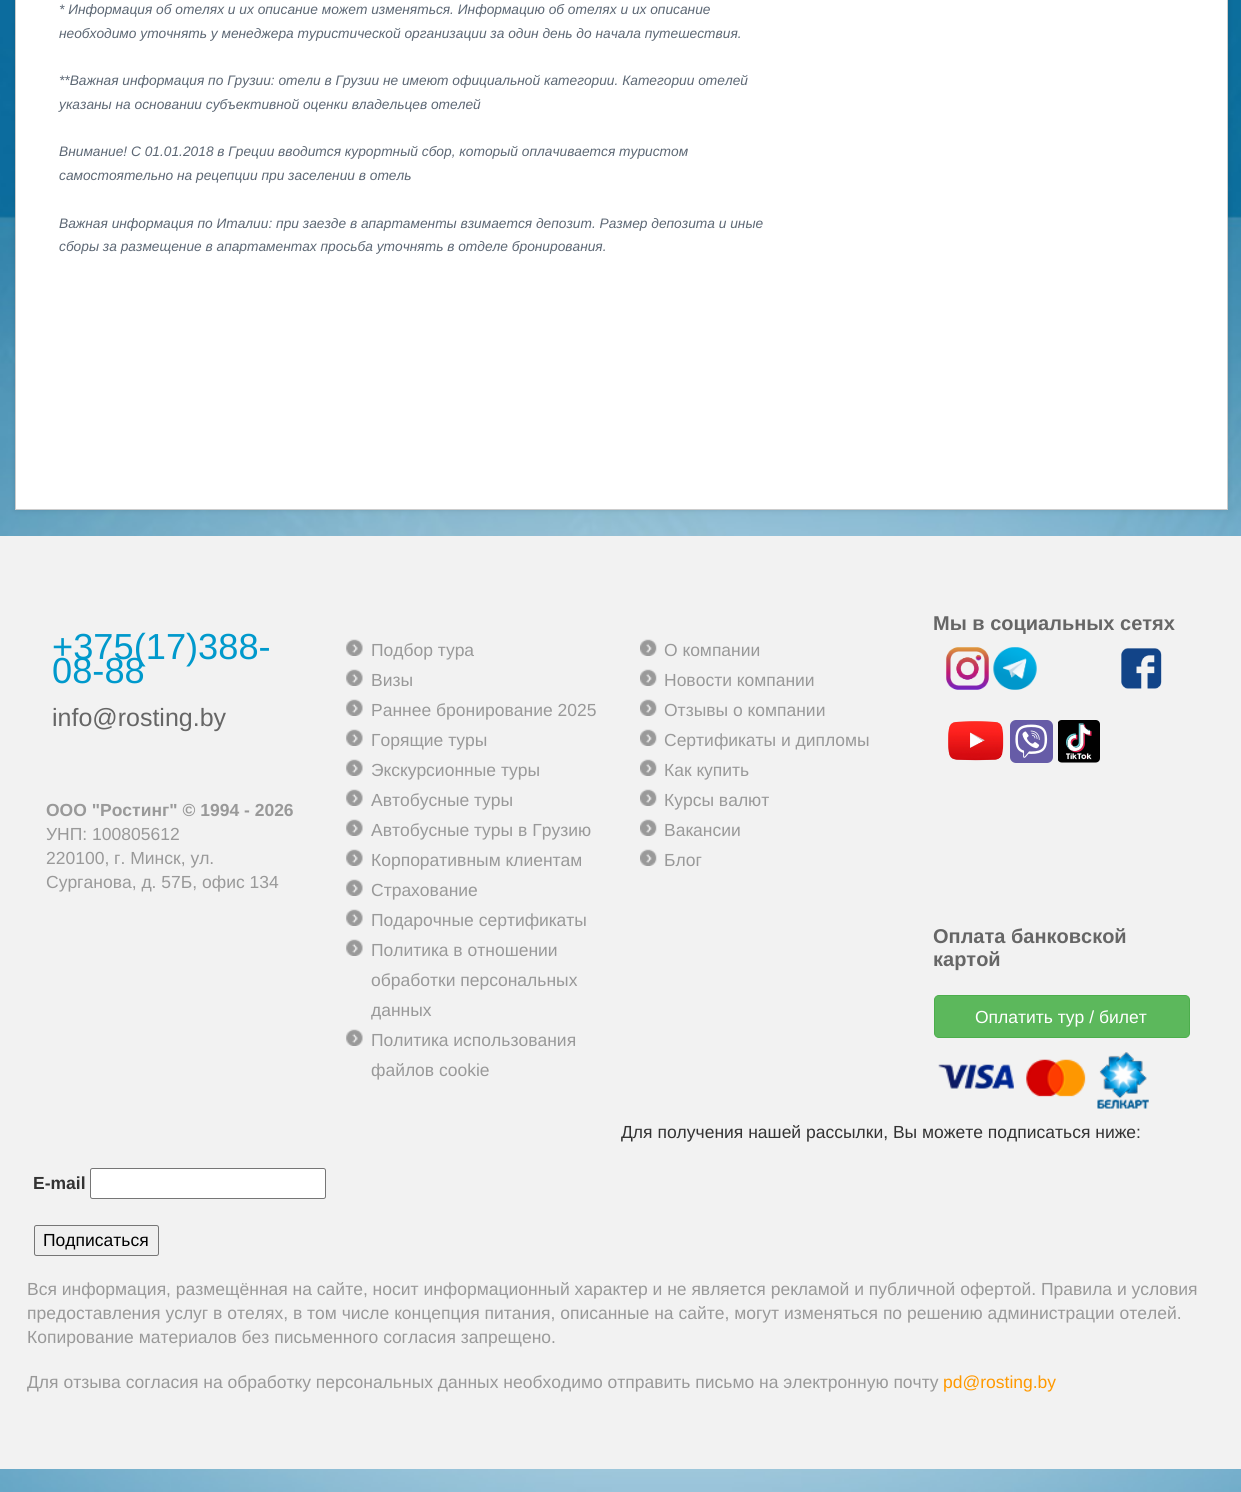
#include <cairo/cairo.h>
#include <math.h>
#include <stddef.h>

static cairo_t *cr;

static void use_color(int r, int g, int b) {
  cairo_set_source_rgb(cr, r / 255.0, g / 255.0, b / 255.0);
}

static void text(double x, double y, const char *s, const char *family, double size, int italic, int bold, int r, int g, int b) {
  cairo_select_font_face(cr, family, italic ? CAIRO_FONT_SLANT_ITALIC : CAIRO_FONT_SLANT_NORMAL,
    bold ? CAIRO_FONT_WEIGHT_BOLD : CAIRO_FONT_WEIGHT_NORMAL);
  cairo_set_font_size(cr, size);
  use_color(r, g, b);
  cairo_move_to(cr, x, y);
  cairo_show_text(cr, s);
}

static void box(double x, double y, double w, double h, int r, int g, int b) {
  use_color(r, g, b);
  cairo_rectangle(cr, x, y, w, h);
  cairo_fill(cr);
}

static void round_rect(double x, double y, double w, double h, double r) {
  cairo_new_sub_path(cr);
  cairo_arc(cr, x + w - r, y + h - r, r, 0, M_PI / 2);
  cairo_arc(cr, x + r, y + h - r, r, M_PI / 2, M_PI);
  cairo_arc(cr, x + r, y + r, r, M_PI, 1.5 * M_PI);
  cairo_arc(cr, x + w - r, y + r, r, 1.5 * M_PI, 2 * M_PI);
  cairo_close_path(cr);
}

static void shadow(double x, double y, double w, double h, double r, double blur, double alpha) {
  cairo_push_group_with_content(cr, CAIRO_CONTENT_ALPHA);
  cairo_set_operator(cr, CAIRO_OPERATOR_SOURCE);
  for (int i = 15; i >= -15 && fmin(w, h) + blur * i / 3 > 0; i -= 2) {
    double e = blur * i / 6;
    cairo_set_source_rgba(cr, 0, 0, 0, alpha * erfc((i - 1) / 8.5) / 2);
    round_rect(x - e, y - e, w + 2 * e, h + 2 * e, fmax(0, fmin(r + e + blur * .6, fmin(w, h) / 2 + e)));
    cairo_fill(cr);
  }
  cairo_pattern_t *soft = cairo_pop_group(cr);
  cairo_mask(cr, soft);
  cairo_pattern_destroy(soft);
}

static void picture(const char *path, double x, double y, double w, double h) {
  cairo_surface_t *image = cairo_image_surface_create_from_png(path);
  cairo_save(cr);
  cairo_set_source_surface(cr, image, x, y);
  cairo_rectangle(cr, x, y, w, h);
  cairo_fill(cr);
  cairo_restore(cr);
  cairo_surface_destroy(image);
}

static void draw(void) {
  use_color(255, 255, 255);
  cairo_paint(cr);
  picture("img_01.png", 0, 0, 1241, 1492);
  use_color(0, 0, 0);
  shadow(15, -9, 1213, 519, 0, 3, 0.13);
  use_color(255, 255, 255);
  cairo_rectangle(cr, 15.5, -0.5, 1212, 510);
  cairo_fill_preserve(cr);
  use_color(204, 204, 204);
  cairo_set_line_width(cr, 1);
  cairo_stroke(cr);
  box(0, 536, 1241, 933, 242, 242, 242);
  picture("img_02.png", 346, 639, 17, 17);
  picture("img_03.png", 346, 669, 17, 17);
  picture("img_03.png", 346, 699, 17, 17);
  picture("img_03.png", 346, 729, 17, 17);
  picture("img_03.png", 346, 759, 17, 17);
  picture("img_03.png", 346, 789, 17, 17);
  picture("img_03.png", 346, 819, 17, 17);
  picture("img_03.png", 346, 849, 17, 17);
  picture("img_03.png", 346, 879, 17, 17);
  picture("img_03.png", 346, 909, 17, 17);
  picture("img_03.png", 346, 939, 17, 17);
  picture("img_03.png", 346, 1029, 17, 17);
  picture("img_04.png", 640, 639, 17, 17);
  picture("img_05.png", 640, 669, 17, 17);
  picture("img_05.png", 640, 699, 17, 17);
  picture("img_05.png", 640, 729, 17, 17);
  picture("img_05.png", 640, 759, 17, 17);
  picture("img_05.png", 640, 789, 17, 17);
  picture("img_05.png", 640, 819, 17, 17);
  picture("img_05.png", 640, 849, 17, 17);
  picture("img_06.png", 946, 647, 43, 43);
  picture("img_07.png", 993, 647, 44, 43);
  picture("img_08.png", 1121, 648, 41, 41);
  picture("img_09.png", 948, 721, 56, 40);
  picture("img_10.png", 1010, 720, 43, 43);
  picture("img_11.png", 1058, 720, 42, 43);
  use_color(92, 184, 92);
  round_rect(934.5, 995.5, 255, 42, 4.5);
  cairo_fill_preserve(cr);
  use_color(76, 174, 76);
  cairo_stroke(cr);
  picture("img_12.png", 938, 1052, 211, 57);
  use_color(255, 255, 255);
  round_rect(90.5, 1168.5, 235, 30, 2);
  cairo_fill_preserve(cr);
  use_color(118, 118, 118);
  cairo_stroke(cr);
  use_color(239, 239, 239);
  round_rect(34.5, 1225.5, 124, 30, 2);
  cairo_fill_preserve(cr);
  use_color(118, 118, 118);
  cairo_stroke(cr);
  text(59, 14, "* Информация об отелях и их описание может изменяться. Информацию об отелях и их описание", "Liberation Sans", 13.75, 1, 0, 92, 103, 116);
  text(59, 38, "необходимо уточнять у менеджера туристической организации за один день до начала путешествия.", "Liberation Sans", 13.75, 1, 0, 92, 103, 116);
  text(59, 85, "**Важная информация по Грузии: отели в Грузии не имеют официальной категории. Категории отелей", "Liberation Sans", 13.75, 1, 0, 92, 103, 116);
  text(59, 109, "указаны на основании субъективной оценки владельцев отелей", "Liberation Sans", 13.75, 1, 0, 92, 103, 116);
  text(59, 156, "Внимание! С 01.01.2018 в Греции вводится курортный сбор, который оплачивается туристом", "Liberation Sans", 13.75, 1, 0, 92, 103, 116);
  text(59, 180, "самостоятельно на рецепции при заселении в отель", "Liberation Sans", 13.75, 1, 0, 92, 103, 116);
  text(59, 228, "Важная информация по Италии: при заезде в апартаменты взимается депозит. Размер депозита и иные", "Liberation Sans", 13.75, 1, 0, 92, 103, 116);
  text(59, 251, "сборы за размещение в апартаментах просьба уточнять в отделе бронирования.", "Liberation Sans", 13.75, 1, 0, 92, 103, 116);
  text(52, 659, "+375(17)388-", "Liberation Sans", 36.25, 0, 0, 0, 153, 204);
  text(52, 683, "08-88", "Liberation Sans", 36.25, 0, 0, 0, 153, 204);
  text(52, 726, "info@rosting.by", "Liberation Sans", 25, 0, 0, 102, 102, 102);
  text(46, 816, "ООО \"Ростинг\" © 1994 - 2026", "Liberation Sans", 17.5, 0, 1, 153, 153, 153);
  text(46, 840, "УНП: 100805612", "Liberation Sans", 17.5, 0, 0, 153, 153, 153);
  text(46, 864, "220100, г. Минск, ул.", "Liberation Sans", 17.5, 0, 0, 153, 153, 153);
  text(46, 888, "Сурганова, д. 57Б, офис 134", "Liberation Sans", 17.5, 0, 0, 153, 153, 153);
  text(371, 656, "Подбор тура", "Liberation Sans", 17.5, 0, 0, 153, 153, 153);
  text(371, 686, "Визы", "Liberation Sans", 17.5, 0, 0, 153, 153, 153);
  text(371, 716, "Раннее бронирование 2025", "Liberation Sans", 17.5, 0, 0, 153, 153, 153);
  text(371, 746, "Горящие туры", "Liberation Sans", 17.5, 0, 0, 153, 153, 153);
  text(371, 776, "Экскурсионные туры", "Liberation Sans", 17.5, 0, 0, 153, 153, 153);
  text(371, 806, "Автобусные туры", "Liberation Sans", 17.5, 0, 0, 153, 153, 153);
  text(371, 836, "Автобусные туры в Грузию", "Liberation Sans", 17.5, 0, 0, 153, 153, 153);
  text(371, 866, "Корпоративным клиентам", "Liberation Sans", 17.5, 0, 0, 153, 153, 153);
  text(371, 896, "Страхование", "Liberation Sans", 17.5, 0, 0, 153, 153, 153);
  text(371, 926, "Подарочные сертификаты", "Liberation Sans", 17.5, 0, 0, 153, 153, 153);
  text(371, 956, "Политика в отношении", "Liberation Sans", 17.5, 0, 0, 153, 153, 153);
  text(371, 986, "обработки персональных", "Liberation Sans", 17.5, 0, 0, 153, 153, 153);
  text(371, 1016, "данных", "Liberation Sans", 17.5, 0, 0, 153, 153, 153);
  text(371, 1046, "Политика использования", "Liberation Sans", 17.5, 0, 0, 153, 153, 153);
  text(371, 1076, "файлов cookie", "Liberation Sans", 17.5, 0, 0, 153, 153, 153);
  text(664, 656, "О компании", "Liberation Sans", 17.5, 0, 0, 153, 153, 153);
  text(664, 686, "Новости компании", "Liberation Sans", 17.5, 0, 0, 153, 153, 153);
  text(664, 716, "Отзывы о компании", "Liberation Sans", 17.5, 0, 0, 153, 153, 153);
  text(664, 746, "Сертификаты и дипломы", "Liberation Sans", 17.5, 0, 0, 153, 153, 153);
  text(664, 776, "Как купить", "Liberation Sans", 17.5, 0, 0, 153, 153, 153);
  text(664, 806, "Курсы валют", "Liberation Sans", 17.5, 0, 0, 153, 153, 153);
  text(664, 836, "Вакансии", "Liberation Sans", 17.5, 0, 0, 153, 153, 153);
  text(664, 866, "Блог", "Liberation Sans", 17.5, 0, 0, 153, 153, 153);
  text(933, 630, "Мы в социальных сетях", "Liberation Sans", 20, 0, 1, 102, 102, 102);
  text(933, 943, "Оплата банковской", "Liberation Sans", 20, 0, 1, 102, 102, 102);
  text(933, 966, "картой", "Liberation Sans", 20, 0, 1, 102, 102, 102);
  text(975, 1023, "Оплатить тур / билет", "Liberation Sans", 17.5, 0, 0, 255, 255, 255);
  text(621, 1138, "Для получения нашей рассылки, Вы можете подписаться ниже:", "Liberation Sans", 17.5, 0, 0, 51, 51, 51);
  text(33, 1189, "E-mail", "Liberation Sans", 17.5, 0, 1, 51, 51, 51);
  text(43, 1246, "Подписаться", "Liberation Sans", 17.5, 0, 0, 0, 0, 0);
  text(27, 1295, "Вся информация, размещённая на сайте, носит информационный характер и не является рекламой и публичной офертой. Правила и условия", "Liberation Sans", 17.5, 0, 0, 153, 153, 153);
  text(27, 1319, "предоставления услуг в отелях, в том числе концепция питания, описанные на сайте, могут изменяться по решению администрации отелей.", "Liberation Sans", 17.5, 0, 0, 153, 153, 153);
  text(27, 1343, "Копирование материалов без письменного согласия запрещено.", "Liberation Sans", 17.5, 0, 0, 153, 153, 153);
  text(27, 1388, "Для отзыва согласия на обработку персональных данных необходимо отправить письмо на электронную почту", "Liberation Sans", 17.5, 0, 0, 153, 153, 153);
  text(943, 1388, "pd@rosting.by", "Liberation Sans", 17.5, 0, 0, 255, 153, 0);
}

int main(void) {
  cairo_surface_t *surface = cairo_image_surface_create(CAIRO_FORMAT_RGB24, 1241, 1492);
  cr = cairo_create(surface);
  cairo_font_options_t *options = cairo_font_options_create();
  cairo_font_options_set_hint_metrics(options, CAIRO_HINT_METRICS_OFF);
  cairo_font_options_set_hint_style(options, CAIRO_HINT_STYLE_NONE);
  cairo_set_font_options(cr, options);
  cairo_set_miter_limit(cr, 4);
  draw();
  cairo_surface_write_to_png(surface, "out.png");
  cairo_font_options_destroy(options);
  cairo_destroy(cr);
  cairo_surface_destroy(surface);
  return 0;
}
